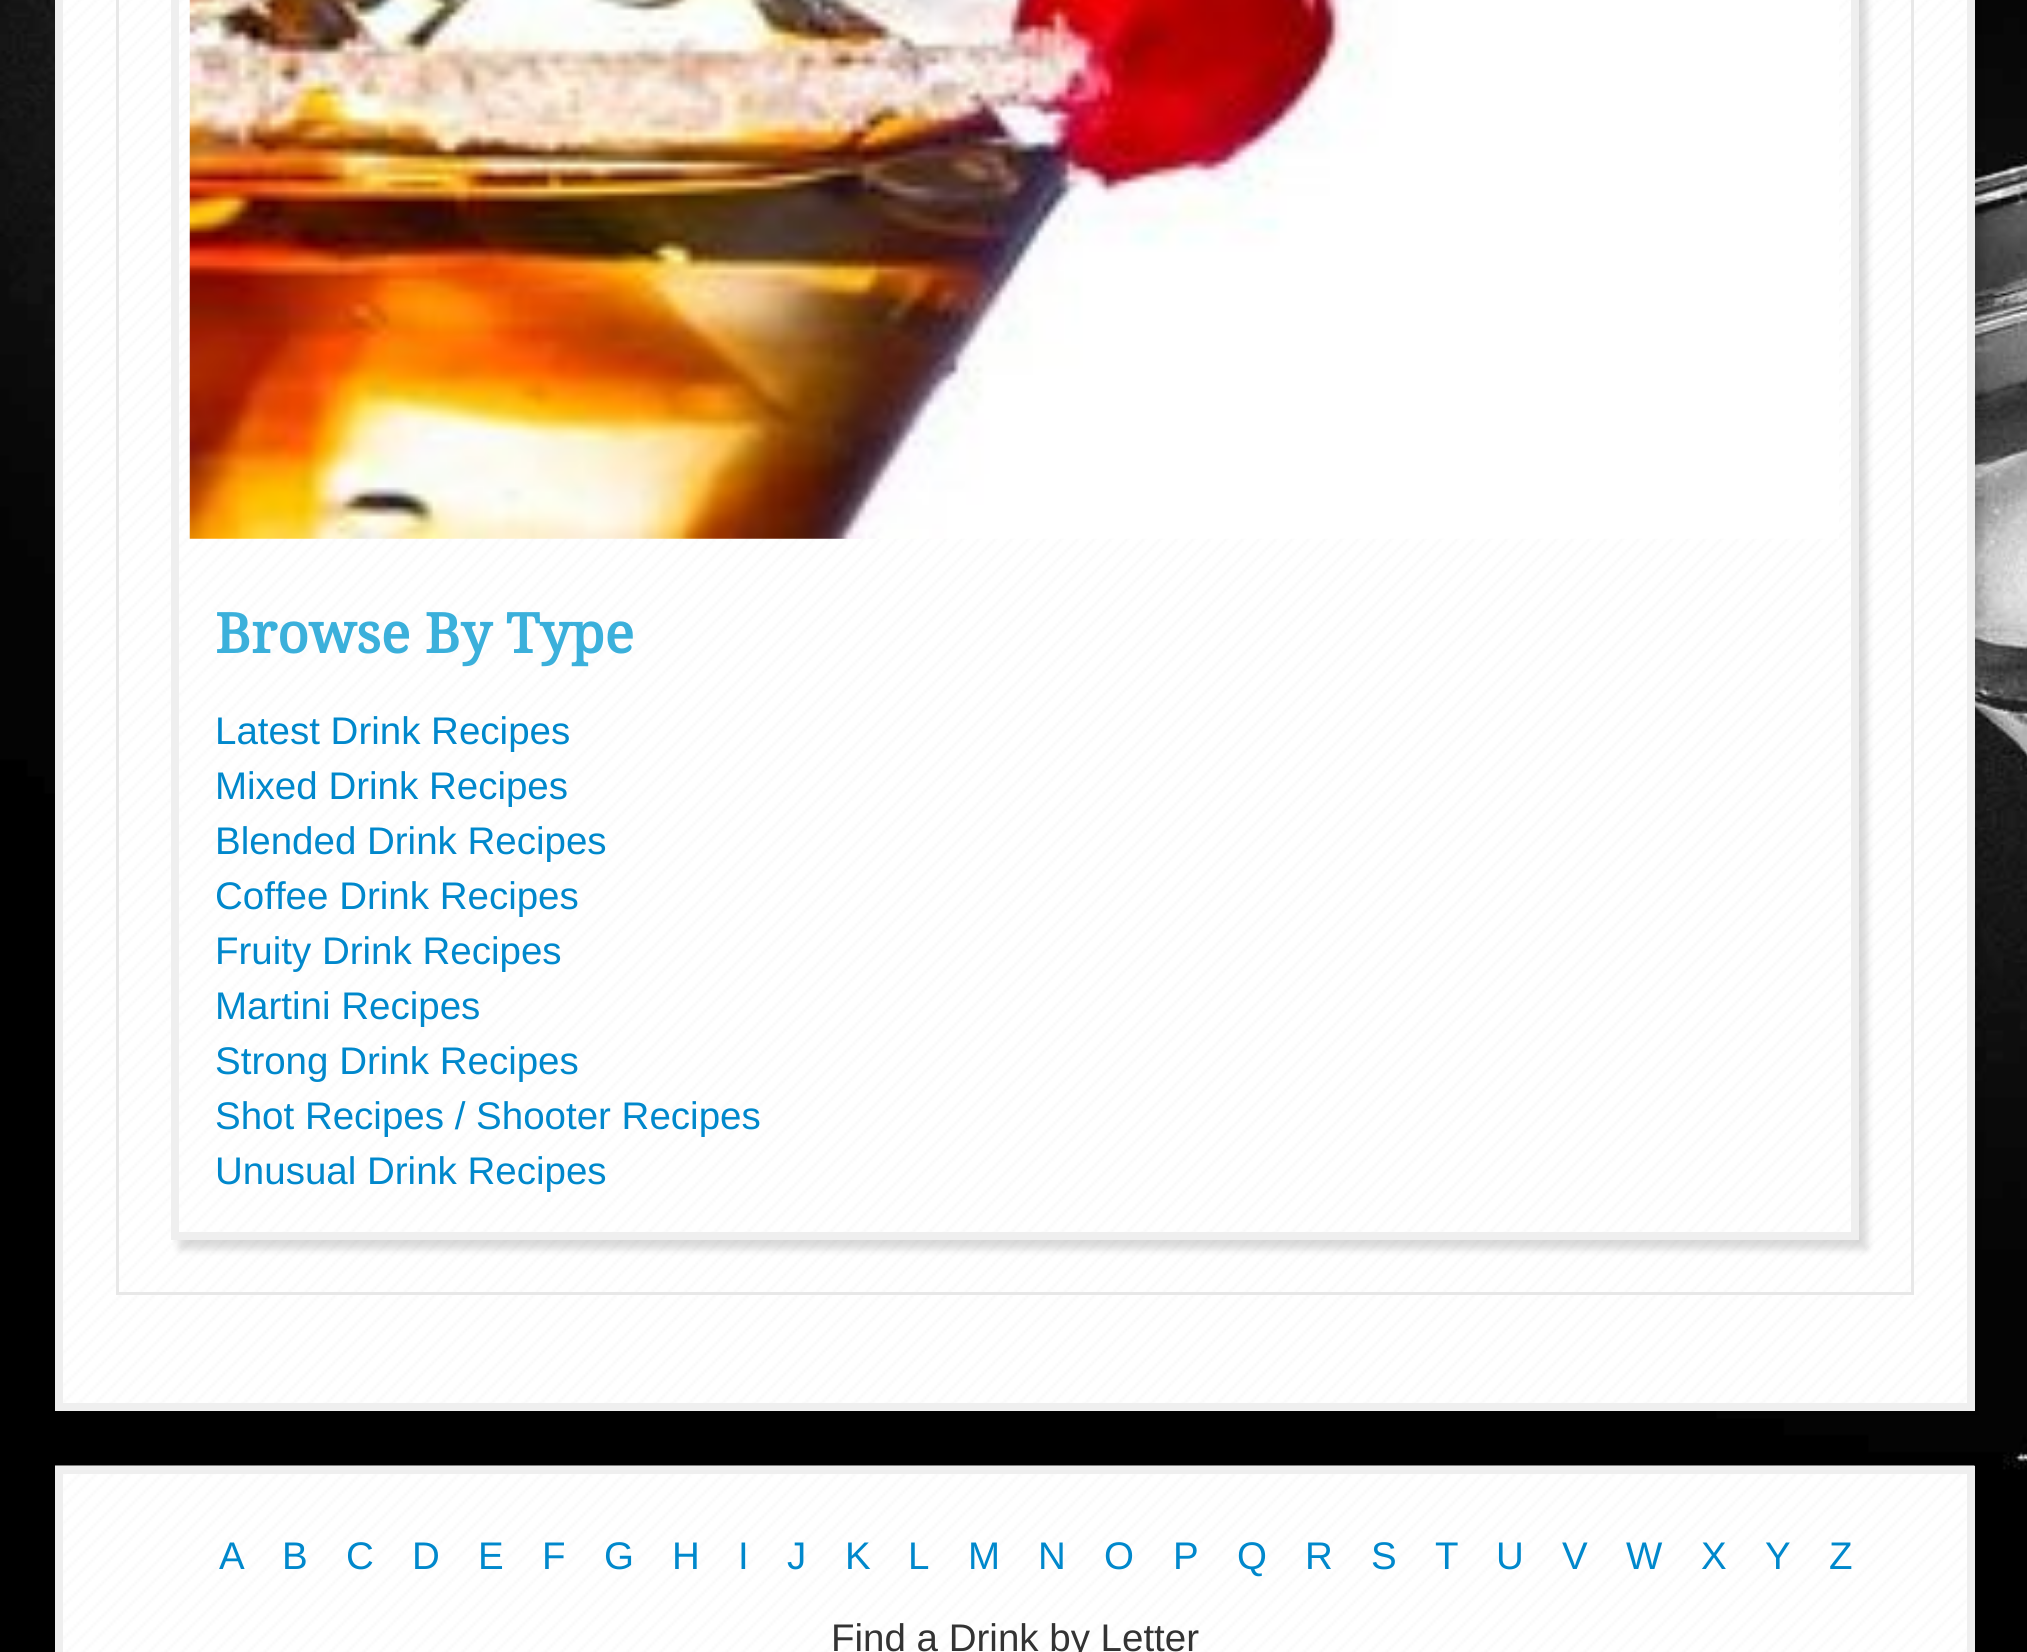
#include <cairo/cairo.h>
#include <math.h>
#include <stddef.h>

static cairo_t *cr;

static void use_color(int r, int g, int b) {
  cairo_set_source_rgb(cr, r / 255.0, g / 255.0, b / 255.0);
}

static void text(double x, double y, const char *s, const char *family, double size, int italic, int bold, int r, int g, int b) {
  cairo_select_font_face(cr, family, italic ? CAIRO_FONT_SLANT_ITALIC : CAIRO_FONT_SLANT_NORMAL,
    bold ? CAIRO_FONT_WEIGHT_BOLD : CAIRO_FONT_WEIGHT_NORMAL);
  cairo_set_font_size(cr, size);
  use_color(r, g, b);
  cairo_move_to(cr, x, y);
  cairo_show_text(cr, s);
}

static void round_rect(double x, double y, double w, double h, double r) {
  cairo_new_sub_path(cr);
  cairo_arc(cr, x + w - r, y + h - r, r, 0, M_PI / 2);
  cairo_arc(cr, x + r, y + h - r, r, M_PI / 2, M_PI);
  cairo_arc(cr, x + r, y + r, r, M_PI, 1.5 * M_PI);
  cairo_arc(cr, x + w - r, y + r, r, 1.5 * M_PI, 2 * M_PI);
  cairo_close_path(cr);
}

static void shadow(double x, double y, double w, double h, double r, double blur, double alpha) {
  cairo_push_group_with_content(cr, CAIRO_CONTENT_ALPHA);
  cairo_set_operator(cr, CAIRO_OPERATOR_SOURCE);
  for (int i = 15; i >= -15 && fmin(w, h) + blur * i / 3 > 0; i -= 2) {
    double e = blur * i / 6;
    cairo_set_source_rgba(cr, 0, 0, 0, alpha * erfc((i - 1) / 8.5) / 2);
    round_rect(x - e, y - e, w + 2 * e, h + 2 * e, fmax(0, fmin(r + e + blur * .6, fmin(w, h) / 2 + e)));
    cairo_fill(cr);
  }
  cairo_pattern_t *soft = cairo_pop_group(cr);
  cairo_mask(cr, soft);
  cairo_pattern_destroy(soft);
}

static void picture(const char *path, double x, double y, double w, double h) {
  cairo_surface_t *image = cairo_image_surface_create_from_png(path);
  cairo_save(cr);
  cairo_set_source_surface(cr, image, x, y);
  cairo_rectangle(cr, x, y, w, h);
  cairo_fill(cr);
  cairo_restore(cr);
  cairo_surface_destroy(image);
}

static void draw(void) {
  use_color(255, 255, 255);
  cairo_paint(cr);
  picture("img_01.png", 0, 0, 2027, 1652);
  use_color(0, 0, 0);
  shadow(63, -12, 1920, 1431, 0, 4, 0.15);
  picture("img_02.png", 63, 0, 1904, 1403);
  cairo_rectangle(cr, 59, -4, 1912, 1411);
  use_color(239, 239, 239);
  cairo_set_line_width(cr, 8);
  cairo_stroke(cr);
  cairo_rectangle(cr, 117.5, -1.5, 1795, 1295);
  use_color(232, 232, 232);
  cairo_set_line_width(cr, 3);
  cairo_stroke(cr);
  use_color(0, 0, 0);
  shadow(179, -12, 1688, 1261, 0, 4, 0.15);
  picture("img_03.png", 179, 0, 1672, 1232);
  cairo_rectangle(cr, 175, -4, 1680, 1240);
  use_color(239, 239, 239);
  cairo_set_line_width(cr, 8);
  cairo_stroke(cr);
  picture("img_04.png", 189, 0, 1650, 539);
  picture("img_05.png", 55, 1465, 1920, 187);
  cairo_rectangle(cr, 59, 1470, 1912, 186);
  cairo_stroke(cr);
  text(215, 653, "Browse By Type", "Droid Serif", 55, 0, 1, 59, 176, 219);
  text(215, 744, "Latest Drink Recipes", "Liberation Sans", 38.5, 0, 0, 0, 136, 204);
  text(215, 799, "Mixed Drink Recipes", "Liberation Sans", 38.5, 0, 0, 0, 136, 204);
  text(215, 854, "Blended Drink Recipes", "Liberation Sans", 38.5, 0, 0, 0, 136, 204);
  text(215, 909, "Coffee Drink Recipes", "Liberation Sans", 38.5, 0, 0, 0, 136, 204);
  text(215, 964, "Fruity Drink Recipes", "Liberation Sans", 38.5, 0, 0, 0, 136, 204);
  text(215, 1019, "Martini Recipes", "Liberation Sans", 38.5, 0, 0, 0, 136, 204);
  text(215, 1074, "Strong Drink Recipes", "Liberation Sans", 38.5, 0, 0, 0, 136, 204);
  text(215, 1129, "Shot Recipes / Shooter Recipes", "Liberation Sans", 38.5, 0, 0, 0, 136, 204);
  text(215, 1184, "Unusual Drink Recipes", "Liberation Sans", 38.5, 0, 0, 0, 136, 204);
  text(219, 1569, "A", "Liberation Sans", 38.5, 0, 0, 0, 136, 204);
  text(282, 1569, "B", "Liberation Sans", 38.5, 0, 0, 0, 136, 204);
  text(346, 1569, "C", "Liberation Sans", 38.5, 0, 0, 0, 136, 204);
  text(412, 1569, "D", "Liberation Sans", 38.5, 0, 0, 0, 136, 204);
  text(478, 1569, "E", "Liberation Sans", 38.5, 0, 0, 0, 136, 204);
  text(542, 1569, "F", "Liberation Sans", 38.5, 0, 0, 0, 136, 204);
  text(604, 1569, "G", "Liberation Sans", 38.5, 0, 0, 0, 136, 204);
  text(672, 1569, "H", "Liberation Sans", 38.5, 0, 0, 0, 136, 204);
  text(738, 1569, "I", "Liberation Sans", 38.5, 0, 0, 0, 136, 204);
  text(787, 1569, "J", "Liberation Sans", 38.5, 0, 0, 0, 136, 204);
  text(845, 1569, "K", "Liberation Sans", 38.5, 0, 0, 0, 136, 204);
  text(908, 1569, "L", "Liberation Sans", 38.5, 0, 0, 0, 136, 204);
  text(968, 1569, "M", "Liberation Sans", 38.5, 0, 0, 0, 136, 204);
  text(1038, 1569, "N", "Liberation Sans", 38.5, 0, 0, 0, 136, 204);
  text(1104, 1569, "O", "Liberation Sans", 38.5, 0, 0, 0, 136, 204);
  text(1173, 1569, "P", "Liberation Sans", 38.5, 0, 0, 0, 136, 204);
  text(1237, 1569, "Q", "Liberation Sans", 38.5, 0, 0, 0, 136, 204);
  text(1305, 1569, "R", "Liberation Sans", 38.5, 0, 0, 0, 136, 204);
  text(1371, 1569, "S", "Liberation Sans", 38.5, 0, 0, 0, 136, 204);
  text(1435, 1569, "T", "Liberation Sans", 38.5, 0, 0, 0, 136, 204);
  text(1496, 1569, "U", "Liberation Sans", 38.5, 0, 0, 0, 136, 204);
  text(1562, 1569, "V", "Liberation Sans", 38.5, 0, 0, 0, 136, 204);
  text(1626, 1569, "W", "Liberation Sans", 38.5, 0, 0, 0, 136, 204);
  text(1701, 1569, "X", "Liberation Sans", 38.5, 0, 0, 0, 136, 204);
  text(1765, 1569, "Y", "Liberation Sans", 38.5, 0, 0, 0, 136, 204);
  text(1829, 1569, "Z", "Liberation Sans", 38.5, 0, 0, 0, 136, 204);
  text(831, 1651, "Find a Drink by Letter", "Liberation Sans", 38.5, 0, 0, 51, 51, 51);
}

int main(void) {
  cairo_surface_t *surface = cairo_image_surface_create(CAIRO_FORMAT_RGB24, 2027, 1652);
  cr = cairo_create(surface);
  cairo_font_options_t *options = cairo_font_options_create();
  cairo_font_options_set_hint_metrics(options, CAIRO_HINT_METRICS_OFF);
  cairo_font_options_set_hint_style(options, CAIRO_HINT_STYLE_NONE);
  cairo_set_font_options(cr, options);
  cairo_set_miter_limit(cr, 4);
  draw();
  cairo_surface_write_to_png(surface, "out.png");
  cairo_font_options_destroy(options);
  cairo_destroy(cr);
  cairo_surface_destroy(surface);
  return 0;
}
